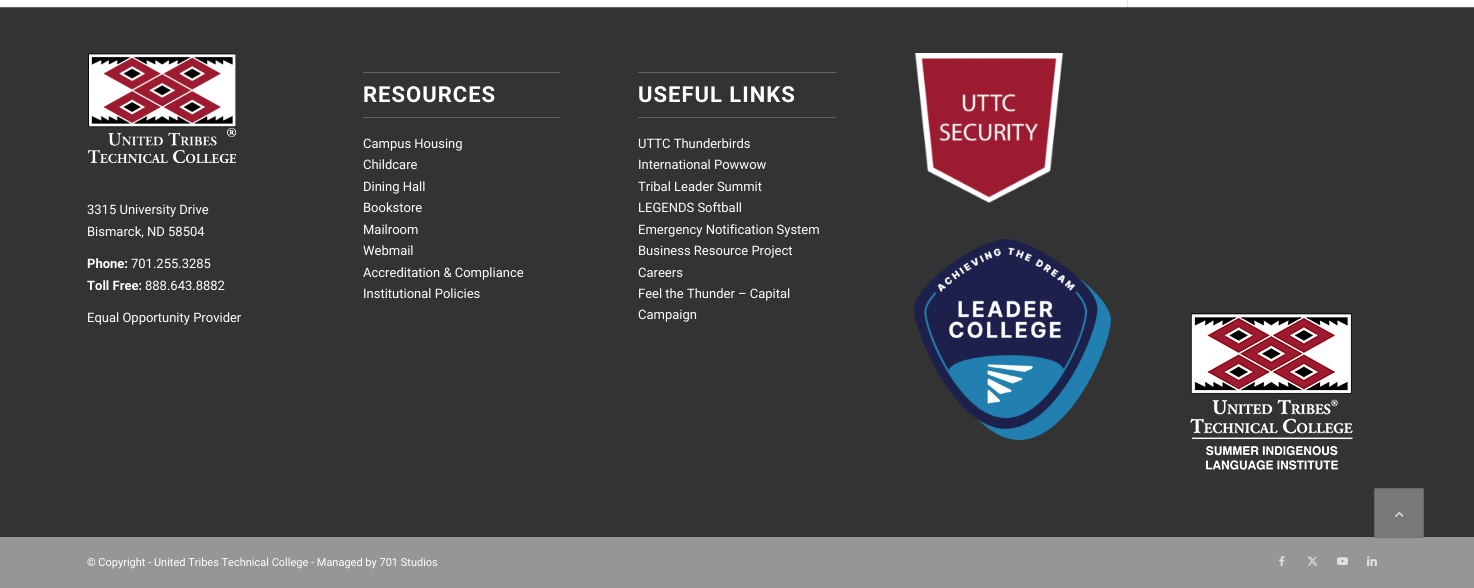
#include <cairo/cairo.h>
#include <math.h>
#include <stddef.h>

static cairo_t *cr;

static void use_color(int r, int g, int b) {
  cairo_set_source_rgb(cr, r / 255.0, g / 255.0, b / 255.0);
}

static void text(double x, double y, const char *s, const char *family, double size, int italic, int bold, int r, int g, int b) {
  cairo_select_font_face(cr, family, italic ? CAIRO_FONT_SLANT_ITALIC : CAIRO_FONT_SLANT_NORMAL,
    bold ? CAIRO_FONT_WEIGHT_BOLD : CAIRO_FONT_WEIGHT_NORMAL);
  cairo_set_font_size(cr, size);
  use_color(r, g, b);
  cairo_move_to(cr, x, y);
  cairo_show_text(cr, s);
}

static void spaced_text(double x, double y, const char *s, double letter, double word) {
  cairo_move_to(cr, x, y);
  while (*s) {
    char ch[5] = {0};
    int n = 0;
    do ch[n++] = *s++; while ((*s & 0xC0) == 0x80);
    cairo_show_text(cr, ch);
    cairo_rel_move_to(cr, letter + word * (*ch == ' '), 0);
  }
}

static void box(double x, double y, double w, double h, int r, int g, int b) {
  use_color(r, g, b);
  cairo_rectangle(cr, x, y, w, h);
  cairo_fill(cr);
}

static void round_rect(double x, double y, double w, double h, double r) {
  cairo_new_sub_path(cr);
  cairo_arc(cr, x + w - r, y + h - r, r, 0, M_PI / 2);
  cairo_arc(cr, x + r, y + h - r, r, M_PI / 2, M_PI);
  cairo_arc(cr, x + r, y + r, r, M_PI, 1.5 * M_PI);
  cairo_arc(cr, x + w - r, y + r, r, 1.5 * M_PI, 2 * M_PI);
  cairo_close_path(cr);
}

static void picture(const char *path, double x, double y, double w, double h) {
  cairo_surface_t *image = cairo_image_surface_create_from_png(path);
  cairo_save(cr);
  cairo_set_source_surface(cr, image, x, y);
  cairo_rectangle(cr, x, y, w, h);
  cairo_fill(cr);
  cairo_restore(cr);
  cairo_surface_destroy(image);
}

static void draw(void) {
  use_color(255, 255, 255);
  cairo_paint(cr);
  box(1127, 0, 1, 7, 225, 225, 225);
  box(0, 8, 1474, 529, 51, 51, 51);
  box(0, 7, 1474, 1, 91, 100, 107);
  picture("img_01.png", 88, 53, 148, 110);
  box(363, 72, 197, 1, 91, 100, 107);
  box(363, 117, 197, 1, 91, 100, 107);
  box(638, 72, 198, 1, 91, 100, 107);
  box(638, 117, 198, 1, 91, 100, 107);
  picture("img_02.png", 914, 53, 150, 150);
  picture("img_03.png", 914, 239, 197, 201);
  picture("img_04.png", 1189, 312, 165, 159);
  box(0, 537, 1474, 51, 150, 150, 150);
  picture("img_05.png", 1279, 556, 6, 11);
  picture("img_06.png", 1307, 556, 11, 10);
  picture("img_07.png", 1337, 557, 11, 8);
  picture("img_08.png", 1367, 556, 10, 10);
  cairo_set_source_rgba(cr, 0.588, 0.588, 0.588, 0.7);
  round_rect(1374, 488, 50, 50, 2);
  cairo_fill(cr);
  round_rect(1374.5, 488.5, 49, 49, 1.5);
  cairo_set_source_rgba(cr, 0.357, 0.392, 0.42, 0.7);
  cairo_set_line_width(cr, 1);
  cairo_stroke(cr);
  picture("img_09.png", 1395, 512, 8, 5);
  text(87, 214, "3315 University Drive", "Roboto", 13, 0, 0, 255, 255, 255);
  text(87, 236, "Bismarck, ND 58504", "Roboto", 13, 0, 0, 255, 255, 255);
  text(87, 268, "Phone:", "Roboto", 13, 0, 1, 255, 255, 255);
  text(131, 268, "701.255.3285", "Roboto", 13, 0, 0, 255, 255, 255);
  text(87, 290, "Toll Free:", "Roboto", 13, 0, 1, 255, 255, 255);
  text(145, 290, "888.643.8882", "Roboto", 13, 0, 0, 255, 255, 255);
  text(87, 322, "Equal Opportunity Provider", "Roboto", 13, 0, 0, 255, 255, 255);
  cairo_select_font_face(cr, "Roboto", CAIRO_FONT_SLANT_NORMAL, CAIRO_FONT_WEIGHT_BOLD);
  cairo_set_font_size(cr, 22);
  spaced_text(363, 102, "RESOURCES", 1, 0);
  text(363, 148, "Campus Housing", "Roboto", 13, 0, 0, 255, 255, 255);
  text(363, 169, "Childcare", "Roboto", 13, 0, 0, 255, 255, 255);
  text(363, 191, "Dining Hall", "Roboto", 13, 0, 0, 255, 255, 255);
  text(363, 212, "Bookstore", "Roboto", 13, 0, 0, 255, 255, 255);
  text(363, 234, "Mailroom", "Roboto", 13, 0, 0, 255, 255, 255);
  text(363, 255, "Webmail", "Roboto", 13, 0, 0, 255, 255, 255);
  text(363, 277, "Accreditation & Compliance", "Roboto", 13, 0, 0, 255, 255, 255);
  text(363, 298, "Institutional Policies", "Roboto", 13, 0, 0, 255, 255, 255);
  cairo_select_font_face(cr, "Roboto", CAIRO_FONT_SLANT_NORMAL, CAIRO_FONT_WEIGHT_BOLD);
  cairo_set_font_size(cr, 22);
  spaced_text(638, 102, "USEFUL LINKS", 1, 0);
  text(638, 148, "UTTC Thunderbirds", "Roboto", 13, 0, 0, 255, 255, 255);
  text(638, 169, "International Powwow", "Roboto", 13, 0, 0, 255, 255, 255);
  text(638, 191, "Tribal Leader Summit", "Roboto", 13, 0, 0, 255, 255, 255);
  text(638, 212, "LEGENDS Softball", "Roboto", 13, 0, 0, 255, 255, 255);
  text(638, 234, "Emergency Notification System", "Roboto", 13, 0, 0, 255, 255, 255);
  text(638, 255, "Business Resource Project", "Roboto", 13, 0, 0, 255, 255, 255);
  text(638, 277, "Careers", "Roboto", 13, 0, 0, 255, 255, 255);
  text(638, 298, "Feel the Thunder – Capital", "Roboto", 13, 0, 0, 255, 255, 255);
  text(638, 319, "Campaign", "Roboto", 13, 0, 0, 255, 255, 255);
  text(87, 566, "© Copyright - United Tribes Technical College - Managed by 701 Studios", "Roboto", 11, 0, 0, 255, 255, 255);
}

int main(void) {
  cairo_surface_t *surface = cairo_image_surface_create(CAIRO_FORMAT_RGB24, 1474, 588);
  cr = cairo_create(surface);
  cairo_font_options_t *options = cairo_font_options_create();
  cairo_font_options_set_hint_metrics(options, CAIRO_HINT_METRICS_OFF);
  cairo_font_options_set_hint_style(options, CAIRO_HINT_STYLE_NONE);
  cairo_set_font_options(cr, options);
  cairo_set_miter_limit(cr, 4);
  draw();
  cairo_surface_write_to_png(surface, "out.png");
  cairo_font_options_destroy(options);
  cairo_destroy(cr);
  cairo_surface_destroy(surface);
  return 0;
}
